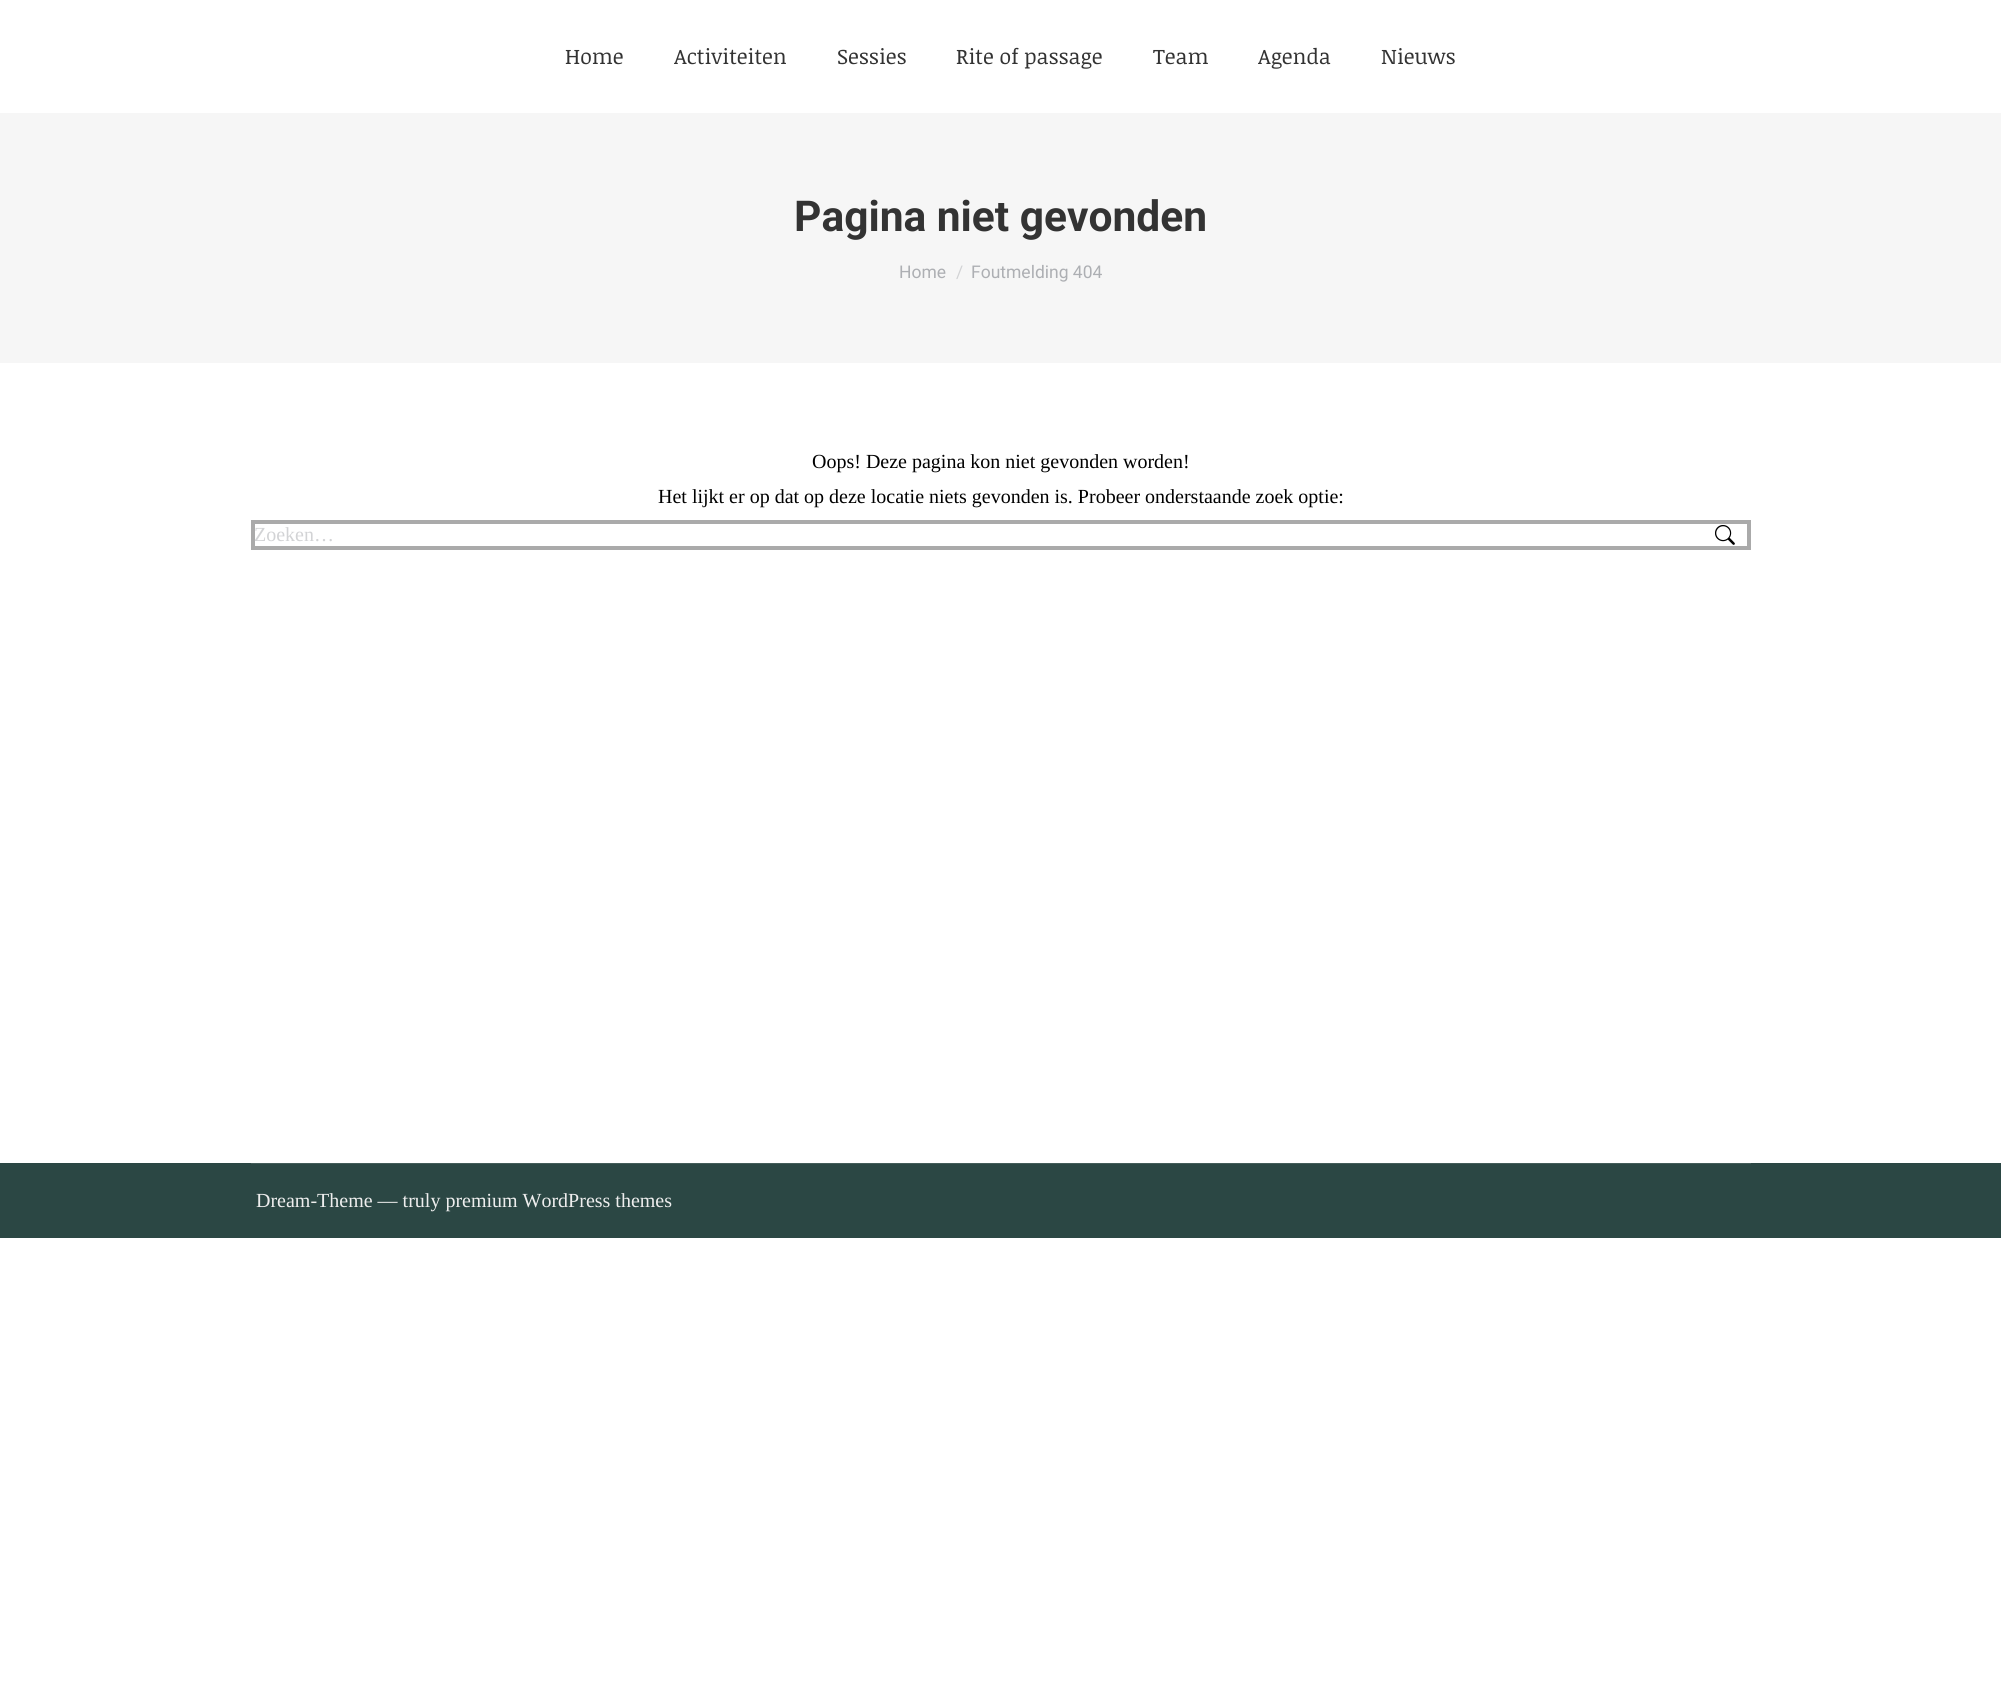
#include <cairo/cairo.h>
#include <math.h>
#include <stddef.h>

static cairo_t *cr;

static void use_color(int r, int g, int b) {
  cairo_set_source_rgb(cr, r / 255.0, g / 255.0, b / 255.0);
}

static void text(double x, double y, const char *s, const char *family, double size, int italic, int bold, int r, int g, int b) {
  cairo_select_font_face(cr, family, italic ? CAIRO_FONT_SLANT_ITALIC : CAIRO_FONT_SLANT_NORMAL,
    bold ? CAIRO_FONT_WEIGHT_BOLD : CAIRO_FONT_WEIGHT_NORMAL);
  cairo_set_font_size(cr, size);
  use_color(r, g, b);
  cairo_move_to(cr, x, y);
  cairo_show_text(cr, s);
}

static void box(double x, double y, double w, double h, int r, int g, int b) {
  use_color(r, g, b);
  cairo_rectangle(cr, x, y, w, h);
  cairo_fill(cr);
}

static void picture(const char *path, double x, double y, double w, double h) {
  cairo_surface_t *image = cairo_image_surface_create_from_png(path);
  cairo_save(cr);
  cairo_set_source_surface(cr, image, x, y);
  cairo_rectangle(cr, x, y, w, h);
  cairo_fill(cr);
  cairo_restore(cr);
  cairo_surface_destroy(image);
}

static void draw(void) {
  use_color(255, 255, 255);
  cairo_paint(cr);
  box(0, 113, 2001, 250, 246, 246, 246);
  cairo_rectangle(cr, 253, 522, 1496, 26);
  use_color(170, 170, 170);
  cairo_set_line_width(cr, 4);
  cairo_stroke(cr);
  picture("img_01.png", 1715, 525, 20, 20);
  box(0, 1163, 2001, 75, 43, 71, 68);
  box(251, 1163, 1500, 1, 68, 93, 90);
  text(565, 64, "Home", "Noticia Text", 21.25, 0, 0, 51, 51, 51);
  text(674, 64, "Activiteiten", "Noticia Text", 21.25, 0, 0, 51, 51, 51);
  text(837, 64, "Sessies", "Noticia Text", 21.25, 0, 0, 51, 51, 51);
  text(956, 64, "Rite of passage", "Noticia Text", 21.25, 0, 0, 51, 51, 51);
  text(1153, 64, "Team", "Noticia Text", 21.25, 0, 0, 51, 51, 51);
  text(1258, 64, "Agenda", "Noticia Text", 21.25, 0, 0, 51, 51, 51);
  text(1381, 64, "Nieuws", "Noticia Text", 21.25, 0, 0, 51, 51, 51);
  text(794, 231, "Pagina niet gevonden", "Roboto", 42.5, 0, 1, 51, 51, 51);
  text(899, 278, "Home", "Roboto", 17.5, 0, 0, 173, 175, 179);
  text(956, 278, "/", "Roboto", 17.5, 0, 0, 210, 211, 213);
  text(971, 278, "Foutmelding 404", "Roboto", 17.5, 0, 0, 173, 175, 179);
  text(812, 468, "Oops! Deze pagina kon niet gevonden worden!", "Liberation Serif", 20, 0, 0, 0, 0, 0);
  text(658, 503, "Het lijkt er op dat op deze locatie niets gevonden is. Probeer onderstaande zoek optie:", "Liberation Serif", 20, 0, 0, 0, 0, 0);
  text(254, 541, "Zoeken…", "Liberation Serif", 20, 0, 0, 210, 211, 213);
  text(256, 1207, "Dream-Theme — truly premium WordPress themes", "Liberation Serif", 20, 0, 0, 238, 238, 238);
}

int main(void) {
  cairo_surface_t *surface = cairo_image_surface_create(CAIRO_FORMAT_RGB24, 2001, 1684);
  cr = cairo_create(surface);
  cairo_font_options_t *options = cairo_font_options_create();
  cairo_font_options_set_hint_metrics(options, CAIRO_HINT_METRICS_OFF);
  cairo_font_options_set_hint_style(options, CAIRO_HINT_STYLE_NONE);
  cairo_set_font_options(cr, options);
  cairo_set_miter_limit(cr, 4);
  draw();
  cairo_surface_write_to_png(surface, "out.png");
  cairo_font_options_destroy(options);
  cairo_destroy(cr);
  cairo_surface_destroy(surface);
  return 0;
}
